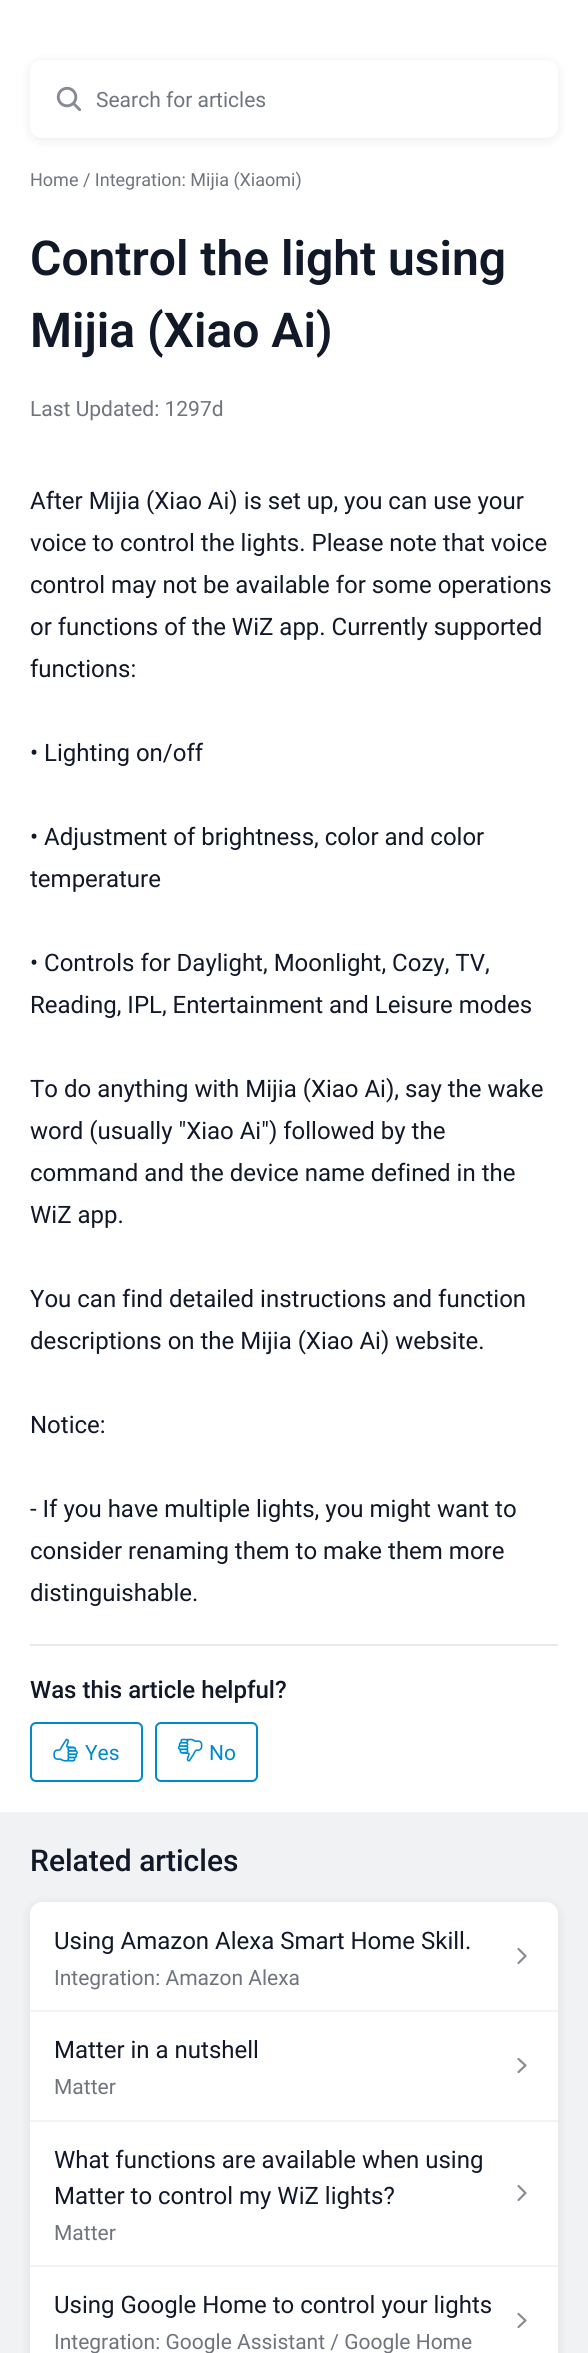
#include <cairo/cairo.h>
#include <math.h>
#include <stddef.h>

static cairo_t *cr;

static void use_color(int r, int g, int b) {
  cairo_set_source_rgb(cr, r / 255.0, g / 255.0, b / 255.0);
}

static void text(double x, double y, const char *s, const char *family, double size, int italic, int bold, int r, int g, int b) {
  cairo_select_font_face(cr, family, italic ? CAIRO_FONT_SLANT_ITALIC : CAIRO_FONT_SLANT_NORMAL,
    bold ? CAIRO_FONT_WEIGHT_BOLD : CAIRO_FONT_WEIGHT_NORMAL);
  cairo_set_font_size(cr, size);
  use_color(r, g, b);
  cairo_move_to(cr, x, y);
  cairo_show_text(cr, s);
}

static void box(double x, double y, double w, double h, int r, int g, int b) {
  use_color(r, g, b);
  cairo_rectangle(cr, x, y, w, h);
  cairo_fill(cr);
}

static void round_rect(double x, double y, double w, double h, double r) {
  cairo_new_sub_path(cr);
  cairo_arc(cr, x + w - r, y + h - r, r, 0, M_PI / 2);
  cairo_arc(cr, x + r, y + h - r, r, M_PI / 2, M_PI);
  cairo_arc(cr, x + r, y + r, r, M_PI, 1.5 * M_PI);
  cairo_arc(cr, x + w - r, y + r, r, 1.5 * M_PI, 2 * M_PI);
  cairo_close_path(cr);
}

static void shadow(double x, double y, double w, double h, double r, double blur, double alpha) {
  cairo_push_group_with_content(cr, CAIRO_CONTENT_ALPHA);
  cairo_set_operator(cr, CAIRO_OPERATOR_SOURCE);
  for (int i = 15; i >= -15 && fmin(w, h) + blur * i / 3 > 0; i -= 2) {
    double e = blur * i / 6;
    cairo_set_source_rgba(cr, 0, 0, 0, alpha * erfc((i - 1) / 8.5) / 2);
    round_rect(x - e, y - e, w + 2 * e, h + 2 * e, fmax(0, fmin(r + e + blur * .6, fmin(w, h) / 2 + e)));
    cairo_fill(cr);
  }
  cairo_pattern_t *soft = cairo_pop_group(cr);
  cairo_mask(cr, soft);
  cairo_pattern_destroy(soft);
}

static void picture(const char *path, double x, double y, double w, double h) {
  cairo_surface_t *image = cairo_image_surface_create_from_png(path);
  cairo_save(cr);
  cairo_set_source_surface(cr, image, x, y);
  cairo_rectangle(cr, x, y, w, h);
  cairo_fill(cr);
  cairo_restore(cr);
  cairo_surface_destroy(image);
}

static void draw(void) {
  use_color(240, 242, 244);
  cairo_paint(cr);
  box(0, 0, 588, 1812, 255, 255, 255);
  use_color(0, 0, 0);
  shadow(30, 62, 528, 78, 12, 6, 0.08);
  use_color(255, 255, 255);
  round_rect(30, 60, 528, 78, 12);
  cairo_fill(cr);
  picture("img_01.png", 56, 86, 26, 26);
  box(30, 1644, 528, 2, 231, 232, 233);
  round_rect(31, 1723, 111, 58, 5);
  use_color(0, 137, 203);
  cairo_stroke(cr);
  picture("img_02.png", 53, 1738, 25, 24);
  round_rect(156, 1723, 101, 58, 5);
  cairo_stroke(cr);
  picture("img_03.png", 177, 1738, 26, 24);
  use_color(0, 0, 0);
  shadow(30, 1904, 528, 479, 12, 6, 0.08);
  use_color(255, 255, 255);
  cairo_new_path(cr);
  cairo_move_to(cr, 42, 1902);
  cairo_line_to(cr, 546, 1902);
  cairo_curve_to(cr, 552.5, 1902, 558, 1907.5, 558, 1914);
  cairo_line_to(cr, 558, 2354);
  cairo_line_to(cr, 30, 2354);
  cairo_line_to(cr, 30, 1914);
  cairo_curve_to(cr, 30, 1907.5, 35.5, 1902, 42, 1902);
  cairo_close_path(cr);
  cairo_fill(cr);
  box(30, 2010, 528, 2, 243, 243, 244);
  cairo_new_path(cr);
  cairo_move_to(cr, 518.5, 1949);
  cairo_line_to(cr, 525.5, 1956);
  cairo_line_to(cr, 518.5, 1963);
  use_color(136, 140, 147);
  cairo_set_line_width(cr, 2.2);
  cairo_set_line_cap(cr, CAIRO_LINE_CAP_ROUND);
  cairo_set_line_join(cr, CAIRO_LINE_JOIN_ROUND);
  cairo_stroke(cr);
  box(30, 2120, 528, 2, 243, 243, 244);
  cairo_new_path(cr);
  cairo_move_to(cr, 518.5, 2059);
  cairo_line_to(cr, 525.5, 2065.5);
  cairo_line_to(cr, 518.5, 2072);
  use_color(136, 140, 147);
  cairo_stroke(cr);
  box(30, 2265, 528, 2, 243, 243, 244);
  cairo_new_path(cr);
  cairo_move_to(cr, 518.5, 2186);
  cairo_line_to(cr, 525.5, 2193);
  cairo_line_to(cr, 518.5, 2200);
  use_color(136, 140, 147);
  cairo_stroke(cr);
  cairo_new_path(cr);
  cairo_move_to(cr, 518.5, 2314);
  cairo_line_to(cr, 525.5, 2320.5);
  cairo_line_to(cr, 518.5, 2327);
  cairo_stroke(cr);
  text(96, 107, "Search for articles", "Roboto", 21, 0, 0, 112, 116, 125);
  text(30, 186, "Home / Integration: Mijia (Xiaomi)", "Roboto", 18, 0, 0, 112, 116, 125);
  text(30, 275, "Control the light using", "Roboto SemiBold", 48, 0, 0, 17, 24, 39);
  text(30, 347, "Mijia (Xiao Ai)", "Roboto SemiBold", 48, 0, 0, 17, 24, 39);
  text(30, 416, "Last Updated: 1297d", "Roboto", 21, 0, 0, 112, 116, 125);
  text(30, 509, "After Mijia (Xiao Ai) is set up, you can use your", "Roboto", 24, 0, 0, 17, 24, 39);
  text(30, 551, "voice to control the lights. Please note that voice", "Roboto", 24, 0, 0, 17, 24, 39);
  text(30, 593, "control may not be available for some operations", "Roboto", 24, 0, 0, 17, 24, 39);
  text(30, 635, "or functions of the WiZ app. Currently supported", "Roboto", 24, 0, 0, 17, 24, 39);
  text(30, 677, "functions:", "Roboto", 24, 0, 0, 17, 24, 39);
  text(30, 761, "• Lighting on/off", "Roboto", 24, 0, 0, 17, 24, 39);
  text(30, 845, "• Adjustment of brightness, color and color", "Roboto", 24, 0, 0, 17, 24, 39);
  text(30, 887, "temperature", "Roboto", 24, 0, 0, 17, 24, 39);
  text(30, 971, "• Controls for Daylight, Moonlight, Cozy, TV,", "Roboto", 24, 0, 0, 17, 24, 39);
  text(30, 1013, "Reading, IPL, Entertainment and Leisure modes", "Roboto", 24, 0, 0, 17, 24, 39);
  text(30, 1097, "To do anything with Mijia (Xiao Ai), say the wake", "Roboto", 24, 0, 0, 17, 24, 39);
  text(30, 1139, "word (usually \"Xiao Ai\") followed by the", "Roboto", 24, 0, 0, 17, 24, 39);
  text(30, 1181, "command and the device name defined in the", "Roboto", 24, 0, 0, 17, 24, 39);
  text(30, 1223, "WiZ app.", "Roboto", 24, 0, 0, 17, 24, 39);
  text(30, 1307, "You can find detailed instructions and function", "Roboto", 24, 0, 0, 17, 24, 39);
  text(30, 1349, "descriptions on the Mijia (Xiao Ai) website.", "Roboto", 24, 0, 0, 17, 24, 39);
  text(30, 1433, "Notice:", "Roboto", 24, 0, 0, 17, 24, 39);
  text(30, 1517, "- If you have multiple lights, you might want to", "Roboto", 24, 0, 0, 17, 24, 39);
  text(30, 1559, "consider renaming them to make them more", "Roboto", 24, 0, 0, 17, 24, 39);
  text(30, 1601, "distinguishable.", "Roboto", 24, 0, 0, 17, 24, 39);
  text(30, 1698, "Was this article helpful?", "Roboto Medium", 24, 0, 0, 17, 24, 39);
  text(85, 1760, "Yes", "Roboto", 21, 0, 0, 0, 137, 203);
  text(209, 1760, "No", "Roboto", 21, 0, 0, 0, 137, 203);
  text(30, 1871, "Related articles", "Roboto Medium", 30, 0, 0, 17, 24, 39);
  text(54, 1949, "Using Amazon Alexa Smart Home Skill.", "Roboto", 24, 0, 0, 17, 24, 39);
  text(54, 1985, "Integration: Amazon Alexa", "Roboto", 21, 0, 0, 112, 116, 125);
  text(54, 2058, "Matter in a nutshell", "Roboto", 24, 0, 0, 17, 24, 39);
  text(54, 2094, "Matter", "Roboto", 21, 0, 0, 112, 116, 125);
  text(54, 2168, "What functions are available when using", "Roboto", 24, 0, 0, 17, 24, 39);
  text(54, 2204, "Matter to control my WiZ lights?", "Roboto", 24, 0, 0, 17, 24, 39);
  text(54, 2240, "Matter", "Roboto", 21, 0, 0, 112, 116, 125);
  text(54, 2313, "Using Google Home to control your lights", "Roboto", 24, 0, 0, 17, 24, 39);
  text(54, 2349, "Integration: Google Assistant / Google Home", "Roboto", 21, 0, 0, 112, 116, 125);
}

int main(void) {
  cairo_surface_t *surface = cairo_image_surface_create(CAIRO_FORMAT_RGB24, 588, 2353);
  cr = cairo_create(surface);
  cairo_font_options_t *options = cairo_font_options_create();
  cairo_font_options_set_hint_metrics(options, CAIRO_HINT_METRICS_OFF);
  cairo_font_options_set_hint_style(options, CAIRO_HINT_STYLE_NONE);
  cairo_set_font_options(cr, options);
  cairo_set_miter_limit(cr, 4);
  draw();
  cairo_surface_write_to_png(surface, "out.png");
  cairo_font_options_destroy(options);
  cairo_destroy(cr);
  cairo_surface_destroy(surface);
  return 0;
}
